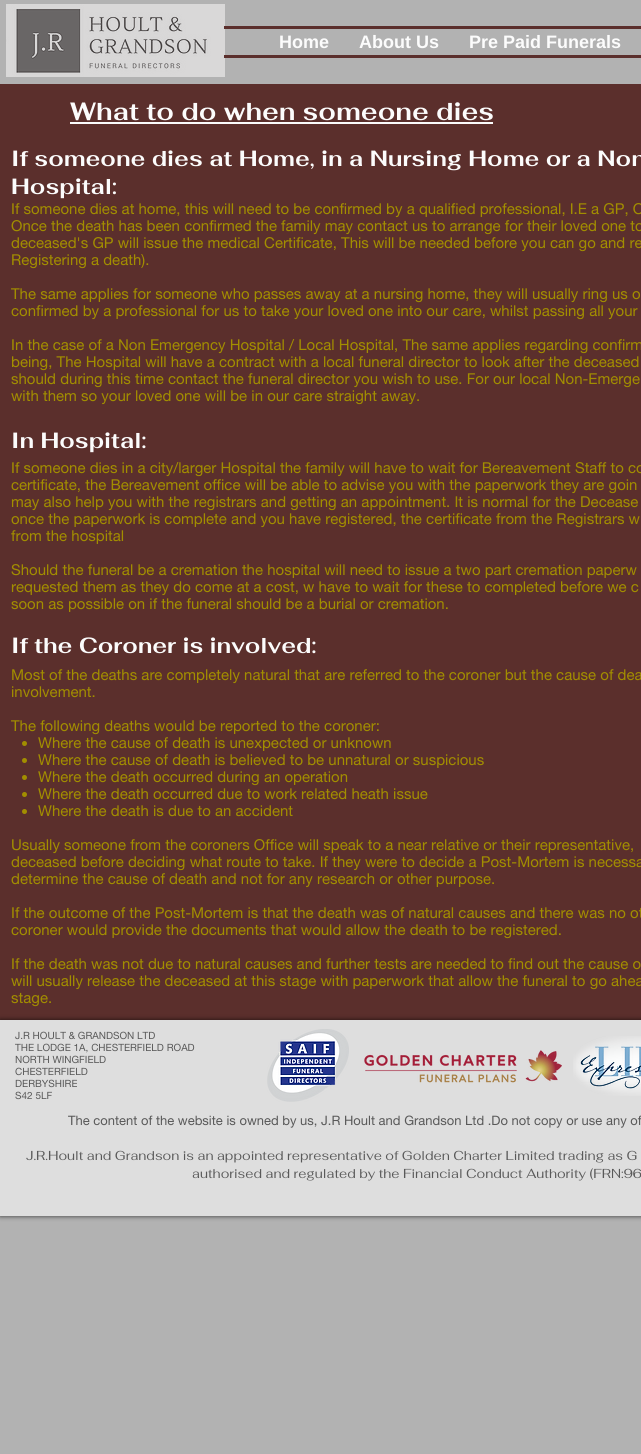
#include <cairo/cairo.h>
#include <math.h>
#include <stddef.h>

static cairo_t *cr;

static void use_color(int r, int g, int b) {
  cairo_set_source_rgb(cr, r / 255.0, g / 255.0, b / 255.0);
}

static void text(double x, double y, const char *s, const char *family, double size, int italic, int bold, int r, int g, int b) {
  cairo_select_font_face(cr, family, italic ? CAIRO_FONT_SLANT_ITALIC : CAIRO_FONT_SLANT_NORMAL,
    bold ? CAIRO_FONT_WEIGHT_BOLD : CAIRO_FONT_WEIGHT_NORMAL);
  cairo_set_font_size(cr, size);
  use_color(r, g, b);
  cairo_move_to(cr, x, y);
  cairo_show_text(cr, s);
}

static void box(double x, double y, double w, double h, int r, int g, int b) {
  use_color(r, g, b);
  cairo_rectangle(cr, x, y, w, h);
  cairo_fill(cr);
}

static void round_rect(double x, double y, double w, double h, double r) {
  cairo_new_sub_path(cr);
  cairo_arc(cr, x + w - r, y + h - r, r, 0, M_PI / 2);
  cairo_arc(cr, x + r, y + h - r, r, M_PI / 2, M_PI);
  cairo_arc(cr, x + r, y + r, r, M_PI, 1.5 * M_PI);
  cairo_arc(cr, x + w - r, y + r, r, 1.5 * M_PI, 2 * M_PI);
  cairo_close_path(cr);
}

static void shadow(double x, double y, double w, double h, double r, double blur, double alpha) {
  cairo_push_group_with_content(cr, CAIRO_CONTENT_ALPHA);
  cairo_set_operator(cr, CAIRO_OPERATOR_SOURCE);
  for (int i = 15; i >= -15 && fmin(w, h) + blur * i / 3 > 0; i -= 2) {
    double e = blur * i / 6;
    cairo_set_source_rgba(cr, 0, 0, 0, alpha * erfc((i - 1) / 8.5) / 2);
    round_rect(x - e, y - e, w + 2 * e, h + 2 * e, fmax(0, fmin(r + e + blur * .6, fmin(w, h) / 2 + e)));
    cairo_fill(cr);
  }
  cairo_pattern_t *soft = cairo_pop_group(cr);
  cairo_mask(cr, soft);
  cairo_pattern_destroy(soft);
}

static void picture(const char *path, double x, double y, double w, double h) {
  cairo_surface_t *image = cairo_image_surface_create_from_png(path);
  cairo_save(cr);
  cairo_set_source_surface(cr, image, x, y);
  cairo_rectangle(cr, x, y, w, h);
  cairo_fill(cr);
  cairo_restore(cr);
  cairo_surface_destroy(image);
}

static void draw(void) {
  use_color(178, 178, 178);
  cairo_paint(cr);
  picture("img_01.png", 6, 4, 219, 73);
  box(224, 26, 417, 3, 91, 47, 44);
  box(224, 55, 417, 3, 91, 47, 44);
  box(0, 84, 641, 936, 91, 47, 44);
  box(70, 122, 423, 2, 252, 252, 252);
  use_color(162, 142, 0);
  cairo_arc(cr, 24.5, 743.5, 2.5, 0, 2 * M_PI);
  cairo_fill(cr);
  cairo_arc(cr, 24.5, 760.5, 2.5, 0, 2 * M_PI);
  cairo_fill(cr);
  cairo_arc(cr, 24.5, 777.5, 2.5, 0, 2 * M_PI);
  cairo_fill(cr);
  cairo_arc(cr, 24.5, 794.5, 2.5, 0, 2 * M_PI);
  cairo_fill(cr);
  cairo_arc(cr, 24.5, 811.5, 2.5, 0, 2 * M_PI);
  cairo_fill(cr);
  use_color(0, 0, 0);
  shadow(0, 1020, 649, 196, 0, 2.5, 0.7);
  box(0, 1020, 641, 196, 222, 222, 222);
  picture("img_02.png", 267, 1029, 82, 73);
  picture("img_03.png", 573, 1036, 68, 60);
  picture("img_04.png", 364, 1050, 198, 33);
  text(279, 48, "Home", "Liberation Sans", 18, 0, 1, 252, 252, 252);
  text(359, 48, "About Us", "Liberation Sans", 18, 0, 1, 252, 252, 252);
  text(469, 48, "Pre Paid Funerals", "Liberation Sans", 18, 0, 1, 252, 252, 252);
  text(70, 120, "What to do when someone dies", "Fahkwang", 25, 0, 1, 252, 252, 252);
  text(11, 166, "If someone dies at Home, in a Nursing Home or a Non", "Fahkwang", 22, 0, 1, 252, 252, 252);
  text(11, 194, "Hospital:", "Fahkwang", 22, 0, 1, 252, 252, 252);
  text(11, 214, "If someone dies at home, this will need to be confirmed by a qualified professional, I.E a GP, O", "helvetica neue", 15, 0, 0, 162, 142, 0);
  text(11, 231, "Once the death has been confirmed the family may contact us to arrange for their loved one to", "helvetica neue", 15, 0, 0, 162, 142, 0);
  text(11, 248, "deceased's GP will issue the medical Certificate, This will be needed before you can go and re", "helvetica neue", 15, 0, 0, 162, 142, 0);
  text(11, 265, "Registering a death).", "helvetica neue", 15, 0, 0, 162, 142, 0);
  text(11, 299, "The same applies for someone who passes away at a nursing home, they will usually ring us o", "helvetica neue", 15, 0, 0, 162, 142, 0);
  text(11, 316, "confirmed by a professional for us to take your loved one into our care, whilst passing all your", "helvetica neue", 15, 0, 0, 162, 142, 0);
  text(11, 350, "In the case of a Non Emergency Hospital / Local Hospital, The same applies regarding confirm", "helvetica neue", 15, 0, 0, 162, 142, 0);
  text(11, 367, "being, The Hospital will have a contract with a local funeral director to look after the deceased", "helvetica neue", 15, 0, 0, 162, 142, 0);
  text(11, 384, "should during this time contact the funeral director you wish to use. For our local Non-Emerge", "helvetica neue", 15, 0, 0, 162, 142, 0);
  text(11, 401, "with them so your loved one will be in our care straight away.", "helvetica neue", 15, 0, 0, 162, 142, 0);
  text(11, 448, "In Hospital:", "Fahkwang", 22, 0, 1, 252, 252, 252);
  text(11, 473, "If someone dies in a city/larger Hospital the family will have to wait for Bereavement Staff to co", "helvetica neue", 15, 0, 0, 162, 142, 0);
  text(11, 490, "certificate, the Bereavement office will be able to advise you with the paperwork they are goin", "helvetica neue", 15, 0, 0, 162, 142, 0);
  text(11, 507, "may also help you with the registrars and getting an appointment. It is normal for the Decease", "helvetica neue", 15, 0, 0, 162, 142, 0);
  text(11, 524, "once the paperwork is complete and you have registered, the certificate from the Registrars w", "helvetica neue", 15, 0, 0, 162, 142, 0);
  text(11, 541, "from the hospital", "helvetica neue", 15, 0, 0, 162, 142, 0);
  text(11, 575, "Should the funeral be a cremation the hospital will need to issue a two part cremation paperw", "helvetica neue", 15, 0, 0, 162, 142, 0);
  text(11, 592, "requested them as they do come at a cost, w have to wait for these to completed before we c", "helvetica neue", 15, 0, 0, 162, 142, 0);
  text(11, 609, "soon as possible on if the funeral should be a burial or cremation.", "helvetica neue", 15, 0, 0, 162, 142, 0);
  text(11, 653, "If the Coroner is involved:", "Fahkwang", 22, 0, 1, 252, 252, 252);
  text(11, 680, "Most of the deaths are completely natural that are referred to the coroner but the cause of dea", "helvetica neue", 15, 0, 0, 162, 142, 0);
  text(11, 697, "involvement.", "helvetica neue", 15, 0, 0, 162, 142, 0);
  text(11, 731, "The following deaths would be reported to the coroner:", "helvetica neue", 15, 0, 0, 162, 142, 0);
  text(38, 748, "Where the cause of death is unexpected or unknown", "helvetica neue", 15, 0, 0, 162, 142, 0);
  text(38, 765, "Where the cause of death is believed to be unnatural or suspicious", "helvetica neue", 15, 0, 0, 162, 142, 0);
  text(38, 782, "Where the death occurred during an operation", "helvetica neue", 15, 0, 0, 162, 142, 0);
  text(38, 799, "Where the death occurred due to work related heath issue", "helvetica neue", 15, 0, 0, 162, 142, 0);
  text(38, 816, "Where the death is due to an accident", "helvetica neue", 15, 0, 0, 162, 142, 0);
  text(11, 850, "Usually someone from the coroners Office will speak to a near relative or their representative,", "helvetica neue", 15, 0, 0, 162, 142, 0);
  text(11, 867, "deceased before deciding what route to take. If they were to decide a Post-Mortem is necessa", "helvetica neue", 15, 0, 0, 162, 142, 0);
  text(11, 884, "determine the cause of death and not for any research or other purpose.", "helvetica neue", 15, 0, 0, 162, 142, 0);
  text(11, 918, "If the outcome of the Post-Mortem is that the death was of natural causes and there was no ot", "helvetica neue", 15, 0, 0, 162, 142, 0);
  text(11, 935, "coroner would provide the documents that would allow the death to be registered.", "helvetica neue", 15, 0, 0, 162, 142, 0);
  text(11, 969, "If the death was not due to natural causes and further tests are needed to find out the cause o", "helvetica neue", 15, 0, 0, 162, 142, 0);
  text(11, 986, "will usually release the deceased at this stage with paperwork that allow the funeral to go ahea", "helvetica neue", 15, 0, 0, 162, 142, 0);
  text(11, 1003, "stage.", "helvetica neue", 15, 0, 0, 162, 142, 0);
  text(15, 1039, "J.R HOULT & GRANDSON LTD", "helvetica neue", 10, 0, 0, 89, 89, 89);
  text(15, 1051, "THE LODGE 1A, CHESTERFIELD ROAD", "helvetica neue", 10, 0, 0, 89, 89, 89);
  text(15, 1063, "NORTH WINGFIELD", "helvetica neue", 10, 0, 0, 89, 89, 89);
  text(15, 1075, "CHESTERFIELD", "helvetica neue", 10, 0, 0, 89, 89, 89);
  text(15, 1087, "DERBYSHIRE", "helvetica neue", 10, 0, 0, 89, 89, 89);
  text(15, 1099, "S42 5LF", "helvetica neue", 10, 0, 0, 89, 89, 89);
  text(68, 1125, "The content of the website is owned by us, J.R Hoult and Grandson Ltd .Do not copy or use any of", "helvetica neue", 13, 0, 0, 89, 89, 89);
  text(26, 1160, "J.R.Hoult and Grandson is an appointed representative of Golden Charter Limited trading as G", "Fahkwang", 13, 0, 0, 89, 89, 89);
  text(192, 1178, "authorised and regulated by the Financial Conduct Authority (FRN:96", "Fahkwang", 13, 0, 0, 89, 89, 89);
}

int main(void) {
  cairo_surface_t *surface = cairo_image_surface_create(CAIRO_FORMAT_RGB24, 641, 1454);
  cr = cairo_create(surface);
  cairo_font_options_t *options = cairo_font_options_create();
  cairo_font_options_set_hint_metrics(options, CAIRO_HINT_METRICS_OFF);
  cairo_font_options_set_hint_style(options, CAIRO_HINT_STYLE_NONE);
  cairo_set_font_options(cr, options);
  cairo_set_miter_limit(cr, 4);
  draw();
  cairo_surface_write_to_png(surface, "out.png");
  cairo_font_options_destroy(options);
  cairo_destroy(cr);
  cairo_surface_destroy(surface);
  return 0;
}
